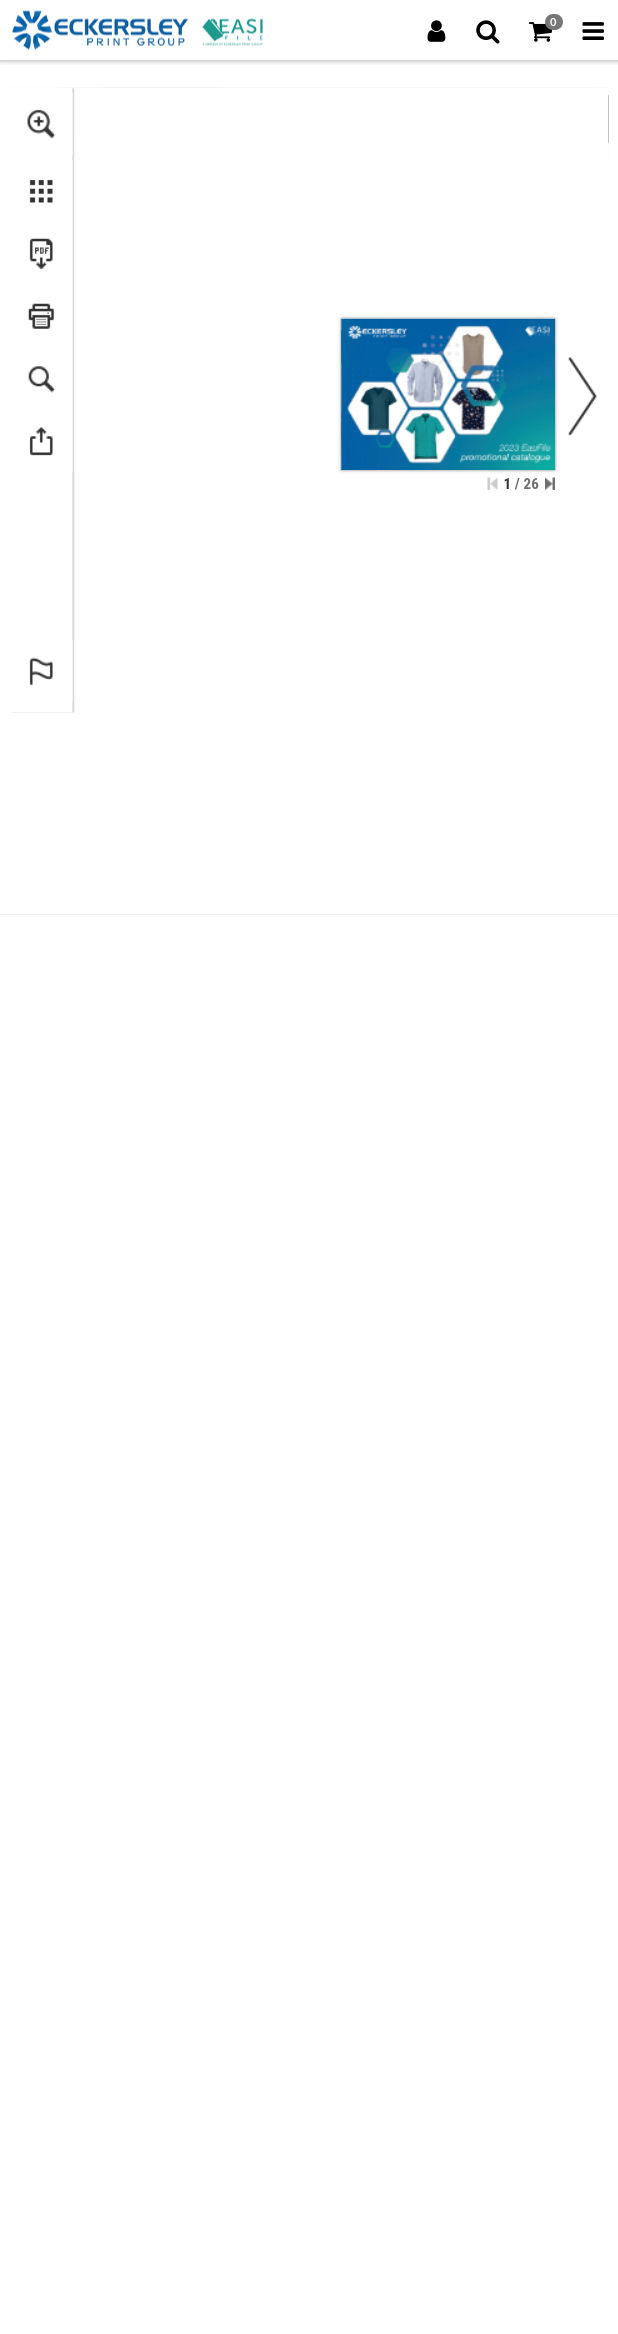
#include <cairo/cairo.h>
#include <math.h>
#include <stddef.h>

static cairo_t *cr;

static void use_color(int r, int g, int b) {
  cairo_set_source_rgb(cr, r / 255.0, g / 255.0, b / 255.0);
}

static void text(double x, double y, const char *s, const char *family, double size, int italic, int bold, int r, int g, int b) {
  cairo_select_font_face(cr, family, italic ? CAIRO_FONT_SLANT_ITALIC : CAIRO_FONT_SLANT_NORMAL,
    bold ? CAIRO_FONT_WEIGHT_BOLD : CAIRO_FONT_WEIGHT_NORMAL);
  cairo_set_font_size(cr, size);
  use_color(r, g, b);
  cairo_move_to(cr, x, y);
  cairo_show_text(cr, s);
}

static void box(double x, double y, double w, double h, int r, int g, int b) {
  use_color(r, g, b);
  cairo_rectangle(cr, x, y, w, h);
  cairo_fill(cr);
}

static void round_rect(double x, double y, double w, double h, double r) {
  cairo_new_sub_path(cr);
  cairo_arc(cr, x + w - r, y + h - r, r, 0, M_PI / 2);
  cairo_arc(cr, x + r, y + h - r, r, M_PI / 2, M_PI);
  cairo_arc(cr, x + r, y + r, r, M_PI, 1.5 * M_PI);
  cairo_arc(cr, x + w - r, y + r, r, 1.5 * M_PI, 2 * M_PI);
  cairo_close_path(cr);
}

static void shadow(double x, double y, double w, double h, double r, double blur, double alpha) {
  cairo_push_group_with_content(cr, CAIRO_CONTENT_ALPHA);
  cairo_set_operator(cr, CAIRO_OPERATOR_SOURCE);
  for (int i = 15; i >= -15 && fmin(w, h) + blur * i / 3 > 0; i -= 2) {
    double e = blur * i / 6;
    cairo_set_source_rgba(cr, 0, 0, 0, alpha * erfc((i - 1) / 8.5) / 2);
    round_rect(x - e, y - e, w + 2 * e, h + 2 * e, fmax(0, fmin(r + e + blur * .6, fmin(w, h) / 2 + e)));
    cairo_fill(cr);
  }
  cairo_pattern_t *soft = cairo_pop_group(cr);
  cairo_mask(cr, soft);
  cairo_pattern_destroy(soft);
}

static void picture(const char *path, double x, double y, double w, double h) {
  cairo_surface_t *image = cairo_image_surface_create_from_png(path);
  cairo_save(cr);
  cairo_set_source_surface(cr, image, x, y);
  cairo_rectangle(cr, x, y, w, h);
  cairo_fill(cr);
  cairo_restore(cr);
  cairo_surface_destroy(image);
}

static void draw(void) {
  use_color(255, 255, 255);
  cairo_paint(cr);
  cairo_save(cr);
  cairo_rectangle(cr, 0, 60, 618, 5);
  cairo_clip(cr);
  use_color(0, 0, 0);
  shadow(0, 1, 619, 60, 0, 2.5, 0.3);
  cairo_restore(cr);
  picture("img_01.png", 12, 10, 251, 40);
  picture("img_02.png", 427, 20, 19, 22);
  picture("img_03.png", 476, 20, 24, 24);
  picture("img_04.png", 528, 22, 24, 20);
  use_color(119, 119, 119);
  round_rect(545, 14, 18, 16, 8);
  cairo_fill(cr);
  picture("img_05.png", 582, 22, 22, 18);
  picture("img_06.png", 11, 87, 598, 626);
  box(0, 914, 618, 1, 242, 242, 242);
  text(550, 26, "0", "Lato", 11, 0, 1, 255, 255, 255);
}

int main(void) {
  cairo_surface_t *surface = cairo_image_surface_create(CAIRO_FORMAT_RGB24, 618, 2334);
  cr = cairo_create(surface);
  cairo_font_options_t *options = cairo_font_options_create();
  cairo_font_options_set_hint_metrics(options, CAIRO_HINT_METRICS_OFF);
  cairo_font_options_set_hint_style(options, CAIRO_HINT_STYLE_NONE);
  cairo_set_font_options(cr, options);
  cairo_set_miter_limit(cr, 4);
  draw();
  cairo_surface_write_to_png(surface, "out.png");
  cairo_font_options_destroy(options);
  cairo_destroy(cr);
  cairo_surface_destroy(surface);
  return 0;
}
